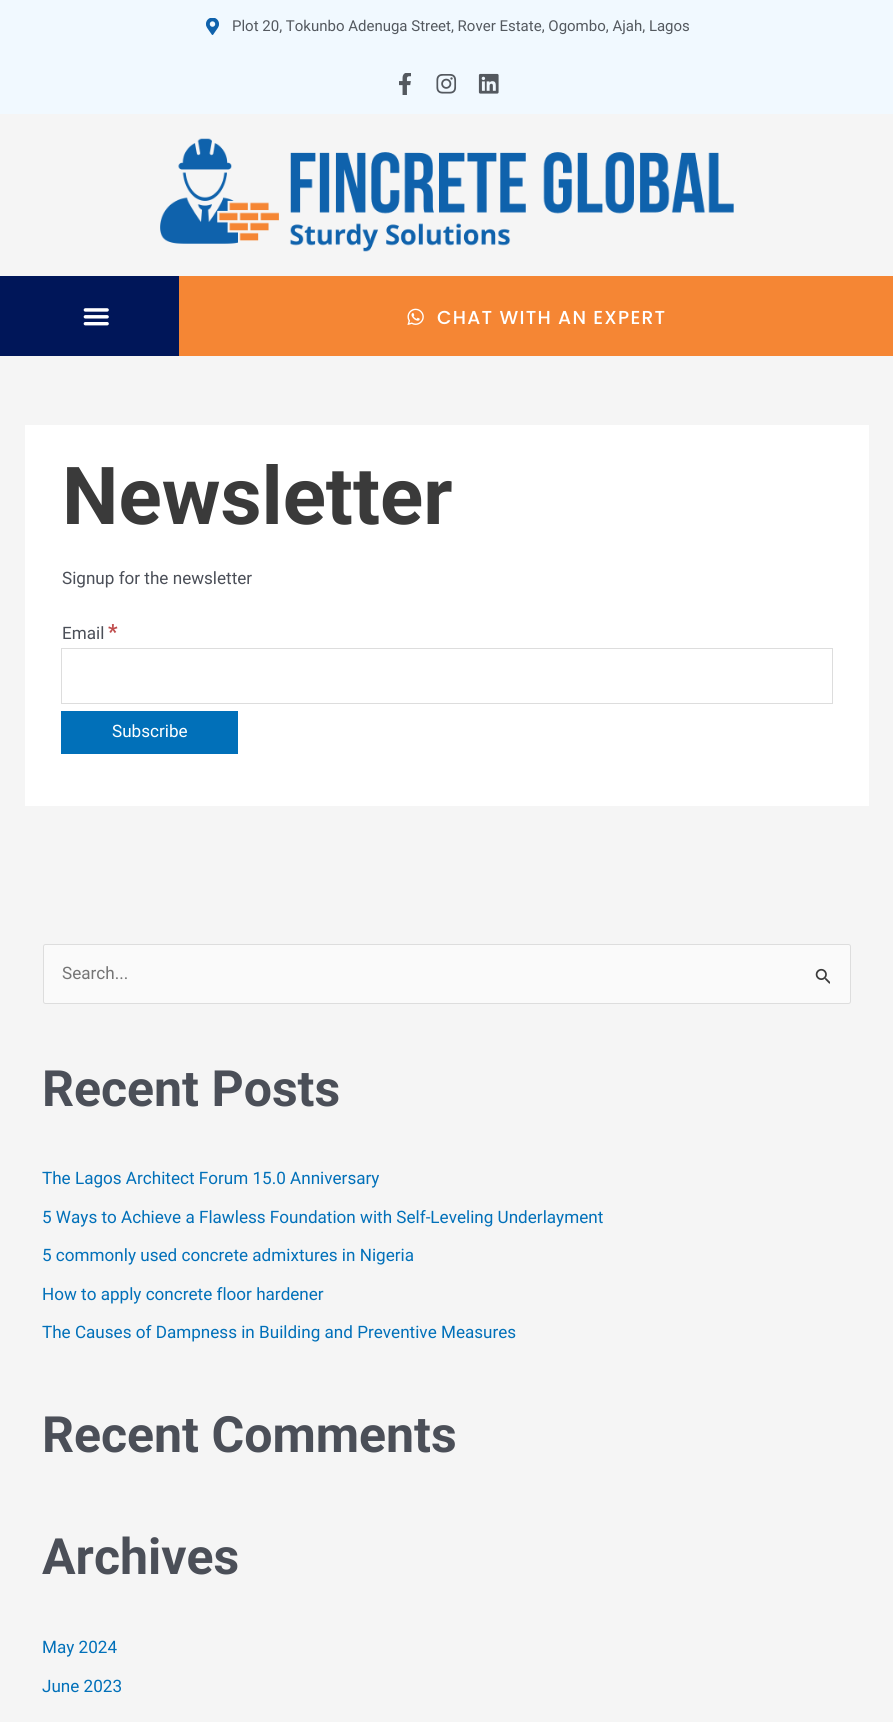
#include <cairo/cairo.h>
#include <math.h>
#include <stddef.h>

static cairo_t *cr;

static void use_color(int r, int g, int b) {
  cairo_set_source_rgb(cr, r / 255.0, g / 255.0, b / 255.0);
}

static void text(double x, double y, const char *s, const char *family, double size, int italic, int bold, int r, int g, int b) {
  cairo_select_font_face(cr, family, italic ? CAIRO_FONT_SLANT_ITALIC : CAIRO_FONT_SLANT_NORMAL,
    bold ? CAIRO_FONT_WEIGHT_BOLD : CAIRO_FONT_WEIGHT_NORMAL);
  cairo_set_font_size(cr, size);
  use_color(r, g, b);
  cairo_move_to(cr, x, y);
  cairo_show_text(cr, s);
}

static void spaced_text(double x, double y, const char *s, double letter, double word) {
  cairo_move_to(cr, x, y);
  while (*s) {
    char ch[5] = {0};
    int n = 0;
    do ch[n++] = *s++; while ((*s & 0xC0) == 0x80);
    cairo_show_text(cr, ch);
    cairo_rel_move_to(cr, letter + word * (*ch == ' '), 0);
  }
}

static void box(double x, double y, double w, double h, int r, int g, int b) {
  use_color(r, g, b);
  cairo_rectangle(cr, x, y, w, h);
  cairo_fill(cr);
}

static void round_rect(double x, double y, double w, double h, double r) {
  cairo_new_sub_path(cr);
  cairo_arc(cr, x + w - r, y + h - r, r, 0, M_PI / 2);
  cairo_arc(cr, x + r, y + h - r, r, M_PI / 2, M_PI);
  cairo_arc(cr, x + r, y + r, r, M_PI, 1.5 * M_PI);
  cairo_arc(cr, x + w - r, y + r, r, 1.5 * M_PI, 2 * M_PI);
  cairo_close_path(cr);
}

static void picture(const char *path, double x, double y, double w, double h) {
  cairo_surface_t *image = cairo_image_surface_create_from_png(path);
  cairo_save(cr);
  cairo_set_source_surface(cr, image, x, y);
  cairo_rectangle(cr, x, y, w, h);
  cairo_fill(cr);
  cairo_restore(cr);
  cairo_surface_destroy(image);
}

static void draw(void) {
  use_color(245, 245, 245);
  cairo_paint(cr);
  box(0, 0, 893, 114, 241, 249, 255);
  picture("img_01.png", 206, 18, 13, 17);
  picture("img_02.png", 399, 73, 12, 22);
  picture("img_03.png", 436, 74, 21, 20);
  picture("img_04.png", 478, 73, 21, 21);
  picture("img_05.png", 160, 138, 574, 114);
  box(0, 276, 179, 80, 0, 22, 89);
  picture("img_06.png", 83, 308, 26, 18);
  box(179, 276, 714, 80, 245, 134, 52);
  picture("img_07.png", 407, 308, 17, 17);
  box(25, 425, 844, 381, 255, 255, 255);
  cairo_rectangle(cr, 61.5, 648.5, 771, 55);
  use_color(221, 221, 221);
  cairo_set_line_width(cr, 1);
  cairo_stroke(cr);
  box(61, 711, 177, 43, 1, 112, 185);
  use_color(250, 250, 250);
  round_rect(43.5, 944.5, 807, 59, 2);
  cairo_fill_preserve(cr);
  use_color(221, 221, 221);
  cairo_stroke(cr);
  picture("img_08.png", 815, 968, 15, 16);
  text(232, 31, "Plot 20, Tokunbo Adenuga Street, Rover Estate, Ogombo, Ajah, Lagos", "Roboto", 15, 0, 0, 84, 89, 95);
  cairo_select_font_face(cr, "Poppins Medium", CAIRO_FONT_SLANT_NORMAL, CAIRO_FONT_WEIGHT_NORMAL);
  cairo_set_font_size(cr, 18.75);
  use_color(255, 255, 255);
  spaced_text(437, 324, "CHAT WITH AN EXPERT", 1.25, 0);
  text(62, 524, "Newsletter", "Roboto", 80, 0, 1, 58, 58, 58);
  text(62, 584, "Signup for the newsletter", "Roboto", 17.1, 0, 0, 75, 79, 88);
  text(62, 639, "Email", "Roboto", 17.1, 0, 0, 75, 79, 88);
  text(108, 639, "*", "Roboto", 21, 0, 1, 191, 77, 77);
  text(112, 737, "Subscribe", "Roboto", 17.1, 0, 0, 255, 255, 255);
  text(62, 979, "Search...", "Roboto", 17.1, 0, 0, 117, 117, 117);
  text(42, 1106, "Recent Posts", "Roboto", 50, 0, 1, 75, 79, 88);
  text(42, 1184, "The Lagos Architect Forum 15.0 Anniversary", "Roboto", 17.1, 0, 0, 1, 112, 185);
  text(42, 1223, "5 Ways to Achieve a Flawless Foundation with Self-Leveling Underlayment", "Roboto", 17.1, 0, 0, 1, 112, 185);
  text(42, 1261, "5 commonly used concrete admixtures in Nigeria", "Roboto", 17.1, 0, 0, 1, 112, 185);
  text(42, 1300, "How to apply concrete floor hardener", "Roboto", 17.1, 0, 0, 1, 112, 185);
  text(42, 1338, "The Causes of Dampness in Building and Preventive Measures", "Roboto", 17.1, 0, 0, 1, 112, 185);
  text(42, 1452, "Recent Comments", "Roboto", 50, 0, 1, 75, 79, 88);
  text(42, 1574, "Archives", "Roboto", 50, 0, 1, 75, 79, 88);
  text(42, 1653, "May 2024", "Roboto", 17.1, 0, 0, 1, 112, 185);
  text(42, 1692, "June 2023", "Roboto", 17.1, 0, 0, 1, 112, 185);
}

int main(void) {
  cairo_surface_t *surface = cairo_image_surface_create(CAIRO_FORMAT_RGB24, 893, 1722);
  cr = cairo_create(surface);
  cairo_font_options_t *options = cairo_font_options_create();
  cairo_font_options_set_hint_metrics(options, CAIRO_HINT_METRICS_OFF);
  cairo_font_options_set_hint_style(options, CAIRO_HINT_STYLE_NONE);
  cairo_set_font_options(cr, options);
  cairo_set_miter_limit(cr, 4);
  draw();
  cairo_surface_write_to_png(surface, "out.png");
  cairo_font_options_destroy(options);
  cairo_destroy(cr);
  cairo_surface_destroy(surface);
  return 0;
}
